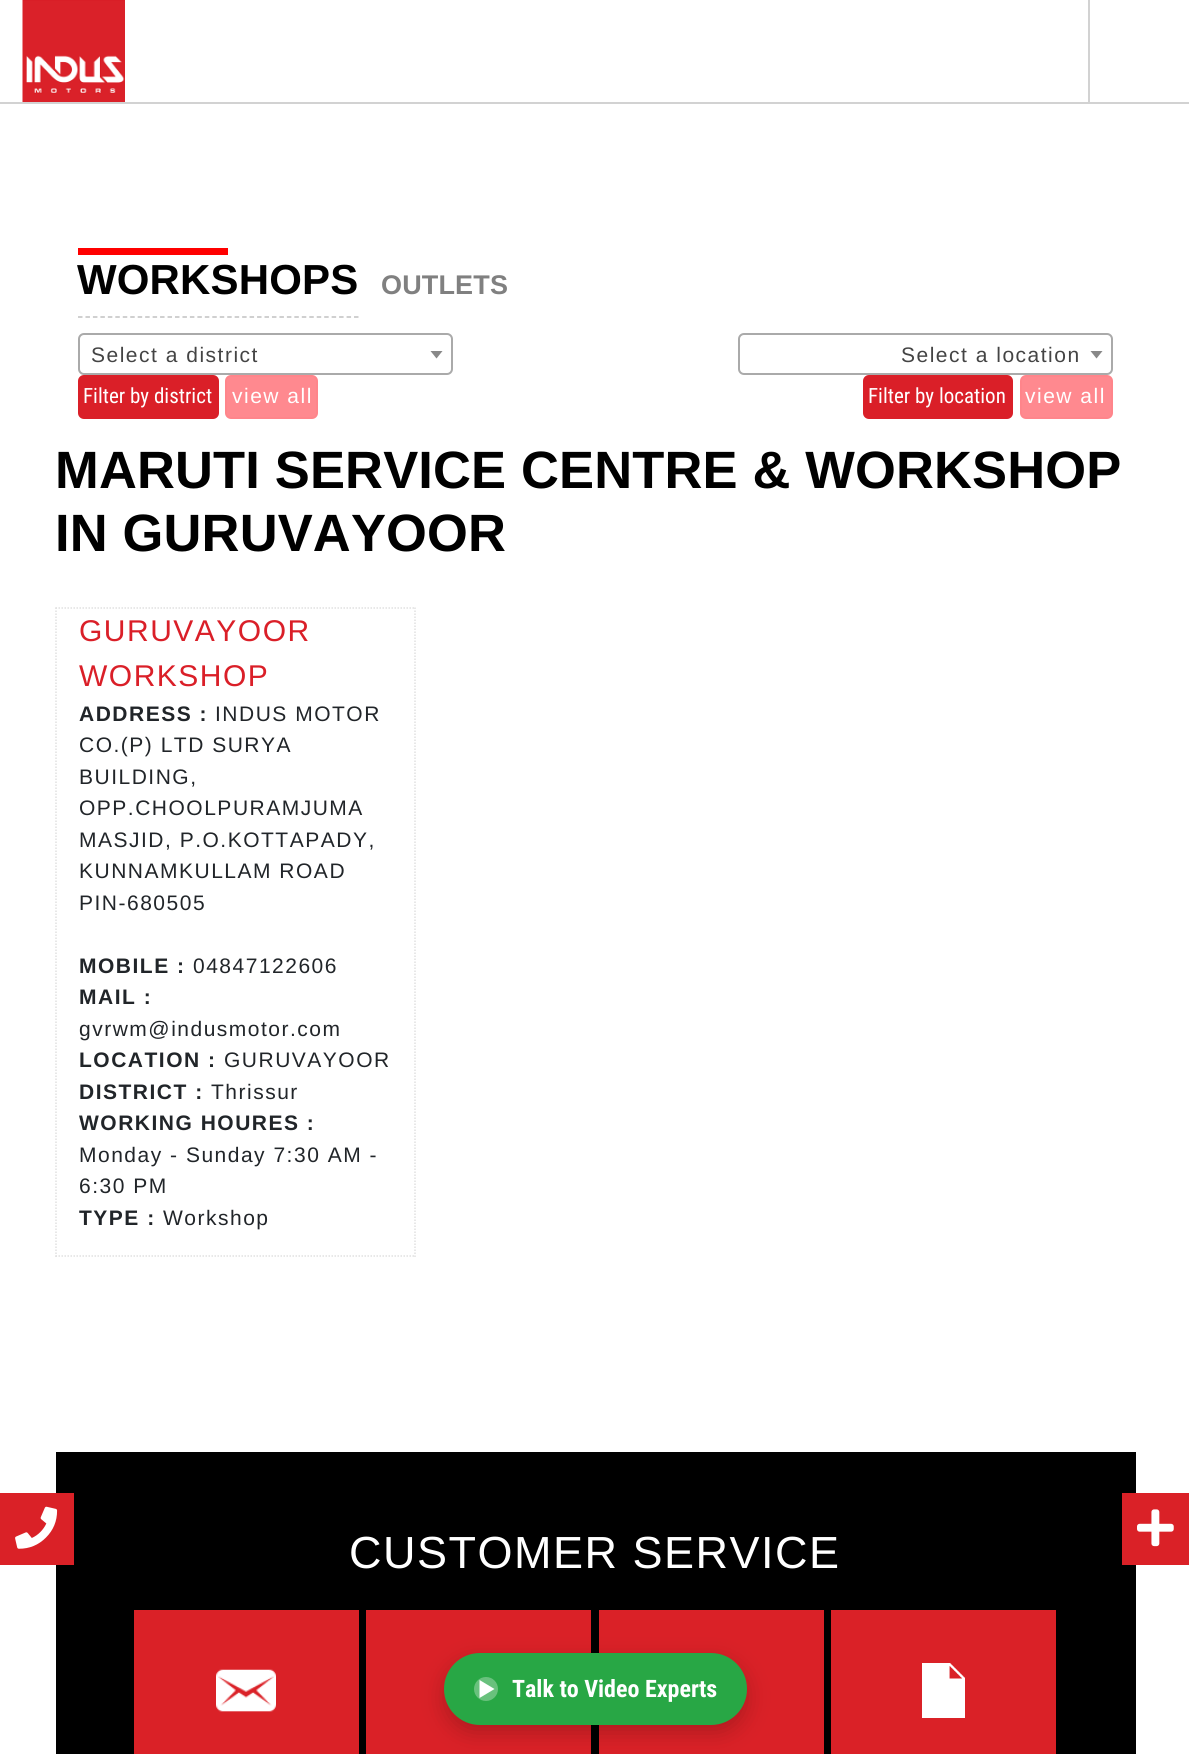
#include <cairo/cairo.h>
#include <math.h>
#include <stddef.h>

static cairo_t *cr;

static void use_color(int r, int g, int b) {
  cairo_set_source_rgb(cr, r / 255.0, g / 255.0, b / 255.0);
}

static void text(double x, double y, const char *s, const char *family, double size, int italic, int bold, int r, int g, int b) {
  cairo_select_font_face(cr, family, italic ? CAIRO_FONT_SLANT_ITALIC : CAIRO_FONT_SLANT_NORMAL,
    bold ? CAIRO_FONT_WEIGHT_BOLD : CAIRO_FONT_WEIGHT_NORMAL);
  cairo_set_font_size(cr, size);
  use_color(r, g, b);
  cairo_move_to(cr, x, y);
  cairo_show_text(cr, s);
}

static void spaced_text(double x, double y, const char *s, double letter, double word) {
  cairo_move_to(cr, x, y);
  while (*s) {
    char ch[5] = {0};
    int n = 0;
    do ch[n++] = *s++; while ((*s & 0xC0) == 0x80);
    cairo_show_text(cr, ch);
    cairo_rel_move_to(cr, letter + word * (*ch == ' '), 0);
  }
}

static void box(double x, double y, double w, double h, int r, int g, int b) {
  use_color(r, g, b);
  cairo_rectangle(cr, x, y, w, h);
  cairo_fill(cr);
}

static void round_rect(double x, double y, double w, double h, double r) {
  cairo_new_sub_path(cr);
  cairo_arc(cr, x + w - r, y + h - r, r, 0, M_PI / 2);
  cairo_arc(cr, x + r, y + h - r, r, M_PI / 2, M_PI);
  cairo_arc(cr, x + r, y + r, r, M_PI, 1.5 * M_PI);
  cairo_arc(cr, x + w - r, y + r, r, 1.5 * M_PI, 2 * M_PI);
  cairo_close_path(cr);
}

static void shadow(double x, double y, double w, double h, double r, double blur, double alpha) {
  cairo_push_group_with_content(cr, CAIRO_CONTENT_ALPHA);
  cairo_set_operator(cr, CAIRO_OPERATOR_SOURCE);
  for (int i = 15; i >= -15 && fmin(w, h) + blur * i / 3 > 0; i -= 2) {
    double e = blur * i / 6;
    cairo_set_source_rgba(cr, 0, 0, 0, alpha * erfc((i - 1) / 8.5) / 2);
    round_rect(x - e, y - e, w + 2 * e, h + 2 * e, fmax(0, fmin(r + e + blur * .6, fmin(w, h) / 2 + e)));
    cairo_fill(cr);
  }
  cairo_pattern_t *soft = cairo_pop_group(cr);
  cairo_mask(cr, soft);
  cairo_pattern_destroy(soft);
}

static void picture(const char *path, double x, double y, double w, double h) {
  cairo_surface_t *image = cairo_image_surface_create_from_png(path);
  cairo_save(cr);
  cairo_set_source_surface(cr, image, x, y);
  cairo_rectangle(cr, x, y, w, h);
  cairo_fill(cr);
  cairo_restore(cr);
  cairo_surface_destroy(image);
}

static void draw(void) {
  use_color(255, 255, 255);
  cairo_paint(cr);
  box(0, 102, 1189, 2, 210, 210, 210);
  picture("img_01.png", 22, 0, 103, 102);
  box(1088, 0, 2, 102, 210, 210, 210);
  box(78, 248, 150, 7, 255, 0, 0);
  cairo_new_path(cr);
  cairo_move_to(cr, 78, 317);
  cairo_line_to(cr, 358.5, 317);
  use_color(193, 193, 193);
  cairo_set_line_width(cr, 1.5);
  cairo_set_dash(cr, (double[]){4.5, 2.96}, 2, 0);
  cairo_stroke(cr);
  round_rect(79, 334, 373, 40, 5);
  use_color(170, 170, 170);
  cairo_set_line_width(cr, 2);
  cairo_set_dash(cr, NULL, 0, 0);
  cairo_stroke(cr);
  use_color(136, 136, 136);
  cairo_new_path(cr);
  cairo_move_to(cr, 430.5, 351);
  cairo_line_to(cr, 442.5, 351);
  cairo_line_to(cr, 436.5, 358.5);
  cairo_close_path(cr);
  cairo_fill(cr);
  use_color(218, 31, 40);
  round_rect(79, 376, 139, 42, 5);
  cairo_fill_preserve(cr);
  cairo_stroke(cr);
  use_color(255, 137, 143);
  round_rect(226, 376, 91, 42, 5);
  cairo_fill_preserve(cr);
  use_color(255, 133, 139);
  cairo_stroke(cr);
  round_rect(739, 334, 373, 40, 5);
  use_color(170, 170, 170);
  cairo_stroke(cr);
  use_color(136, 136, 136);
  cairo_new_path(cr);
  cairo_move_to(cr, 1090.5, 351);
  cairo_line_to(cr, 1102.5, 351);
  cairo_line_to(cr, 1096.5, 358.5);
  cairo_close_path(cr);
  cairo_fill(cr);
  use_color(218, 31, 40);
  round_rect(864, 376, 148, 42, 5);
  cairo_fill_preserve(cr);
  cairo_stroke(cr);
  use_color(255, 137, 143);
  round_rect(1021, 376, 91, 42, 5);
  cairo_fill_preserve(cr);
  use_color(255, 133, 139);
  cairo_stroke(cr);
  cairo_new_path(cr);
  cairo_move_to(cr, 55.5, 608);
  cairo_line_to(cr, 415.5, 608);
  use_color(224, 224, 224);
  cairo_set_line_width(cr, 1.5);
  cairo_set_dash(cr, (double[]){1.5, 1.5}, 2, 0);
  cairo_stroke(cr);
  cairo_new_path(cr);
  cairo_move_to(cr, 415, 607.5);
  cairo_line_to(cr, 415, 1257);
  cairo_stroke(cr);
  cairo_new_path(cr);
  cairo_move_to(cr, 55.5, 1256);
  cairo_line_to(cr, 415.5, 1256);
  cairo_stroke(cr);
  cairo_new_path(cr);
  cairo_move_to(cr, 56, 607.5);
  cairo_line_to(cr, 56, 1257);
  cairo_stroke(cr);
  box(56, 1452, 1080, 302, 0, 0, 0);
  box(0, 1493, 74, 72, 218, 33, 39);
  picture("img_02.png", 15, 1506, 43, 43);
  box(134, 1610, 225, 144, 218, 33, 39);
  picture("img_03.png", 216, 1669, 60, 43);
  box(366, 1610, 225, 144, 218, 33, 39);
  box(599, 1610, 225, 144, 218, 33, 39);
  box(831, 1610, 225, 144, 218, 33, 39);
  picture("img_04.png", 922, 1663, 43, 55);
  box(1122, 1493, 67, 72, 218, 33, 39);
  picture("img_05.png", 1137, 1509, 37, 38);
  use_color(0, 0, 0);
  shadow(444, 1661, 303, 72, 36, 11, 0.2);
  use_color(40, 167, 69);
  round_rect(444, 1653, 303, 72, 36);
  cairo_fill(cr);
  use_color(105, 193, 125);
  cairo_arc(cr, 486, 1689, 12, 0, 2 * M_PI);
  cairo_fill(cr);
  use_color(255, 255, 255);
  cairo_new_path(cr);
  cairo_move_to(cr, 479.5, 1698);
  cairo_line_to(cr, 479.5, 1680);
  cairo_line_to(cr, 494.5, 1689);
  cairo_close_path(cr);
  cairo_fill(cr);
  cairo_select_font_face(cr, "Liberation Sans", CAIRO_FONT_SLANT_NORMAL, CAIRO_FONT_WEIGHT_BOLD);
  cairo_set_font_size(cr, 42);
  use_color(0, 0, 0);
  spaced_text(77, 294, "WORKSHOPS", 0.15, 0);
  cairo_set_font_size(cr, 27);
  use_color(128, 128, 128);
  spaced_text(381, 294, "OUTLETS", 0.15, 0);
  cairo_select_font_face(cr, "Liberation Sans", CAIRO_FONT_SLANT_NORMAL, CAIRO_FONT_WEIGHT_NORMAL);
  cairo_set_font_size(cr, 21);
  use_color(68, 68, 68);
  spaced_text(91, 362, "Select a district", 1.5, 0);
  text(83, 403, "Filter by district", "Roboto Condensed", 21, 0, 0, 255, 255, 255);
  cairo_select_font_face(cr, "Liberation Sans", CAIRO_FONT_SLANT_NORMAL, CAIRO_FONT_WEIGHT_NORMAL);
  spaced_text(232, 403, "view all", 1.5, 0);
  use_color(68, 68, 68);
  spaced_text(901, 362, "Select a location", 1.5, 0);
  text(868, 403, "Filter by location", "Roboto Condensed", 21, 0, 0, 255, 255, 255);
  cairo_select_font_face(cr, "Liberation Sans", CAIRO_FONT_SLANT_NORMAL, CAIRO_FONT_WEIGHT_NORMAL);
  spaced_text(1025, 403, "view all", 1.5, 0);
  cairo_select_font_face(cr, "Liberation Sans", CAIRO_FONT_SLANT_NORMAL, CAIRO_FONT_WEIGHT_BOLD);
  cairo_set_font_size(cr, 52.5);
  use_color(0, 0, 0);
  spaced_text(55, 488, "MARUTI SERVICE CENTRE & WORKSHOP", 0.15, 0);
  spaced_text(55, 551, "IN GURUVAYOOR", 0.15, 0);
  cairo_select_font_face(cr, "Liberation Sans", CAIRO_FONT_SLANT_NORMAL, CAIRO_FONT_WEIGHT_NORMAL);
  cairo_set_font_size(cr, 30);
  use_color(218, 31, 40);
  spaced_text(79, 641, "GURUVAYOOR", 1.5, 0);
  spaced_text(79, 686, "WORKSHOP", 1.5, 0);
  cairo_select_font_face(cr, "Liberation Sans", CAIRO_FONT_SLANT_NORMAL, CAIRO_FONT_WEIGHT_BOLD);
  cairo_set_font_size(cr, 21);
  use_color(33, 37, 41);
  spaced_text(79, 721, "ADDRESS :", 1.5, 0);
  cairo_select_font_face(cr, "Liberation Sans", CAIRO_FONT_SLANT_NORMAL, CAIRO_FONT_WEIGHT_NORMAL);
  spaced_text(215, 721, "INDUS MOTOR", 1.5, 0);
  spaced_text(79, 752, "CO.(P) LTD SURYA", 1.5, 0);
  spaced_text(79, 784, "BUILDING,", 1.5, 0);
  spaced_text(79, 815, "OPP.CHOOLPURAMJUMA", 1.5, 0);
  spaced_text(79, 847, "MASJID, P.O.KOTTAPADY,", 1.5, 0);
  spaced_text(79, 878, "KUNNAMKULLAM ROAD", 1.5, 0);
  spaced_text(79, 910, "PIN-680505", 1.5, 0);
  cairo_select_font_face(cr, "Liberation Sans", CAIRO_FONT_SLANT_NORMAL, CAIRO_FONT_WEIGHT_BOLD);
  spaced_text(79, 973, "MOBILE :", 1.5, 0);
  cairo_select_font_face(cr, "Liberation Sans", CAIRO_FONT_SLANT_NORMAL, CAIRO_FONT_WEIGHT_NORMAL);
  spaced_text(193, 973, "04847122606", 1.5, 0);
  cairo_select_font_face(cr, "Liberation Sans", CAIRO_FONT_SLANT_NORMAL, CAIRO_FONT_WEIGHT_BOLD);
  spaced_text(79, 1004, "MAIL :", 1.5, 0);
  cairo_select_font_face(cr, "Liberation Sans", CAIRO_FONT_SLANT_NORMAL, CAIRO_FONT_WEIGHT_NORMAL);
  spaced_text(79, 1036, "gvrwm@indusmotor.com", 1.5, 0);
  cairo_select_font_face(cr, "Liberation Sans", CAIRO_FONT_SLANT_NORMAL, CAIRO_FONT_WEIGHT_BOLD);
  spaced_text(79, 1067, "LOCATION :", 1.5, 0);
  cairo_select_font_face(cr, "Liberation Sans", CAIRO_FONT_SLANT_NORMAL, CAIRO_FONT_WEIGHT_NORMAL);
  spaced_text(224, 1067, "GURUVAYOOR", 1.5, 0);
  cairo_select_font_face(cr, "Liberation Sans", CAIRO_FONT_SLANT_NORMAL, CAIRO_FONT_WEIGHT_BOLD);
  spaced_text(79, 1099, "DISTRICT :", 1.5, 0);
  cairo_select_font_face(cr, "Liberation Sans", CAIRO_FONT_SLANT_NORMAL, CAIRO_FONT_WEIGHT_NORMAL);
  spaced_text(211, 1099, "Thrissur", 1.5, 0);
  cairo_select_font_face(cr, "Liberation Sans", CAIRO_FONT_SLANT_NORMAL, CAIRO_FONT_WEIGHT_BOLD);
  spaced_text(79, 1130, "WORKING HOURES :", 1.5, 0);
  cairo_select_font_face(cr, "Liberation Sans", CAIRO_FONT_SLANT_NORMAL, CAIRO_FONT_WEIGHT_NORMAL);
  spaced_text(79, 1162, "Monday - Sunday 7:30 AM -", 1.5, 0);
  spaced_text(79, 1193, "6:30 PM", 1.5, 0);
  cairo_select_font_face(cr, "Liberation Sans", CAIRO_FONT_SLANT_NORMAL, CAIRO_FONT_WEIGHT_BOLD);
  spaced_text(79, 1225, "TYPE :", 1.5, 0);
  cairo_select_font_face(cr, "Liberation Sans", CAIRO_FONT_SLANT_NORMAL, CAIRO_FONT_WEIGHT_NORMAL);
  spaced_text(163, 1225, "Workshop", 1.5, 0);
  cairo_set_font_size(cr, 45);
  use_color(255, 255, 255);
  spaced_text(349, 1568, "CUSTOMER SERVICE", 1.5, 0);
  text(512, 1697, "Talk to Video Experts", "Roboto Condensed", 24, 0, 1, 255, 255, 255);
}

int main(void) {
  cairo_surface_t *surface = cairo_image_surface_create(CAIRO_FORMAT_RGB24, 1189, 1754);
  cr = cairo_create(surface);
  cairo_font_options_t *options = cairo_font_options_create();
  cairo_font_options_set_hint_metrics(options, CAIRO_HINT_METRICS_OFF);
  cairo_font_options_set_hint_style(options, CAIRO_HINT_STYLE_NONE);
  cairo_set_font_options(cr, options);
  cairo_set_miter_limit(cr, 4);
  draw();
  cairo_surface_write_to_png(surface, "out.png");
  cairo_font_options_destroy(options);
  cairo_destroy(cr);
  cairo_surface_destroy(surface);
  return 0;
}
